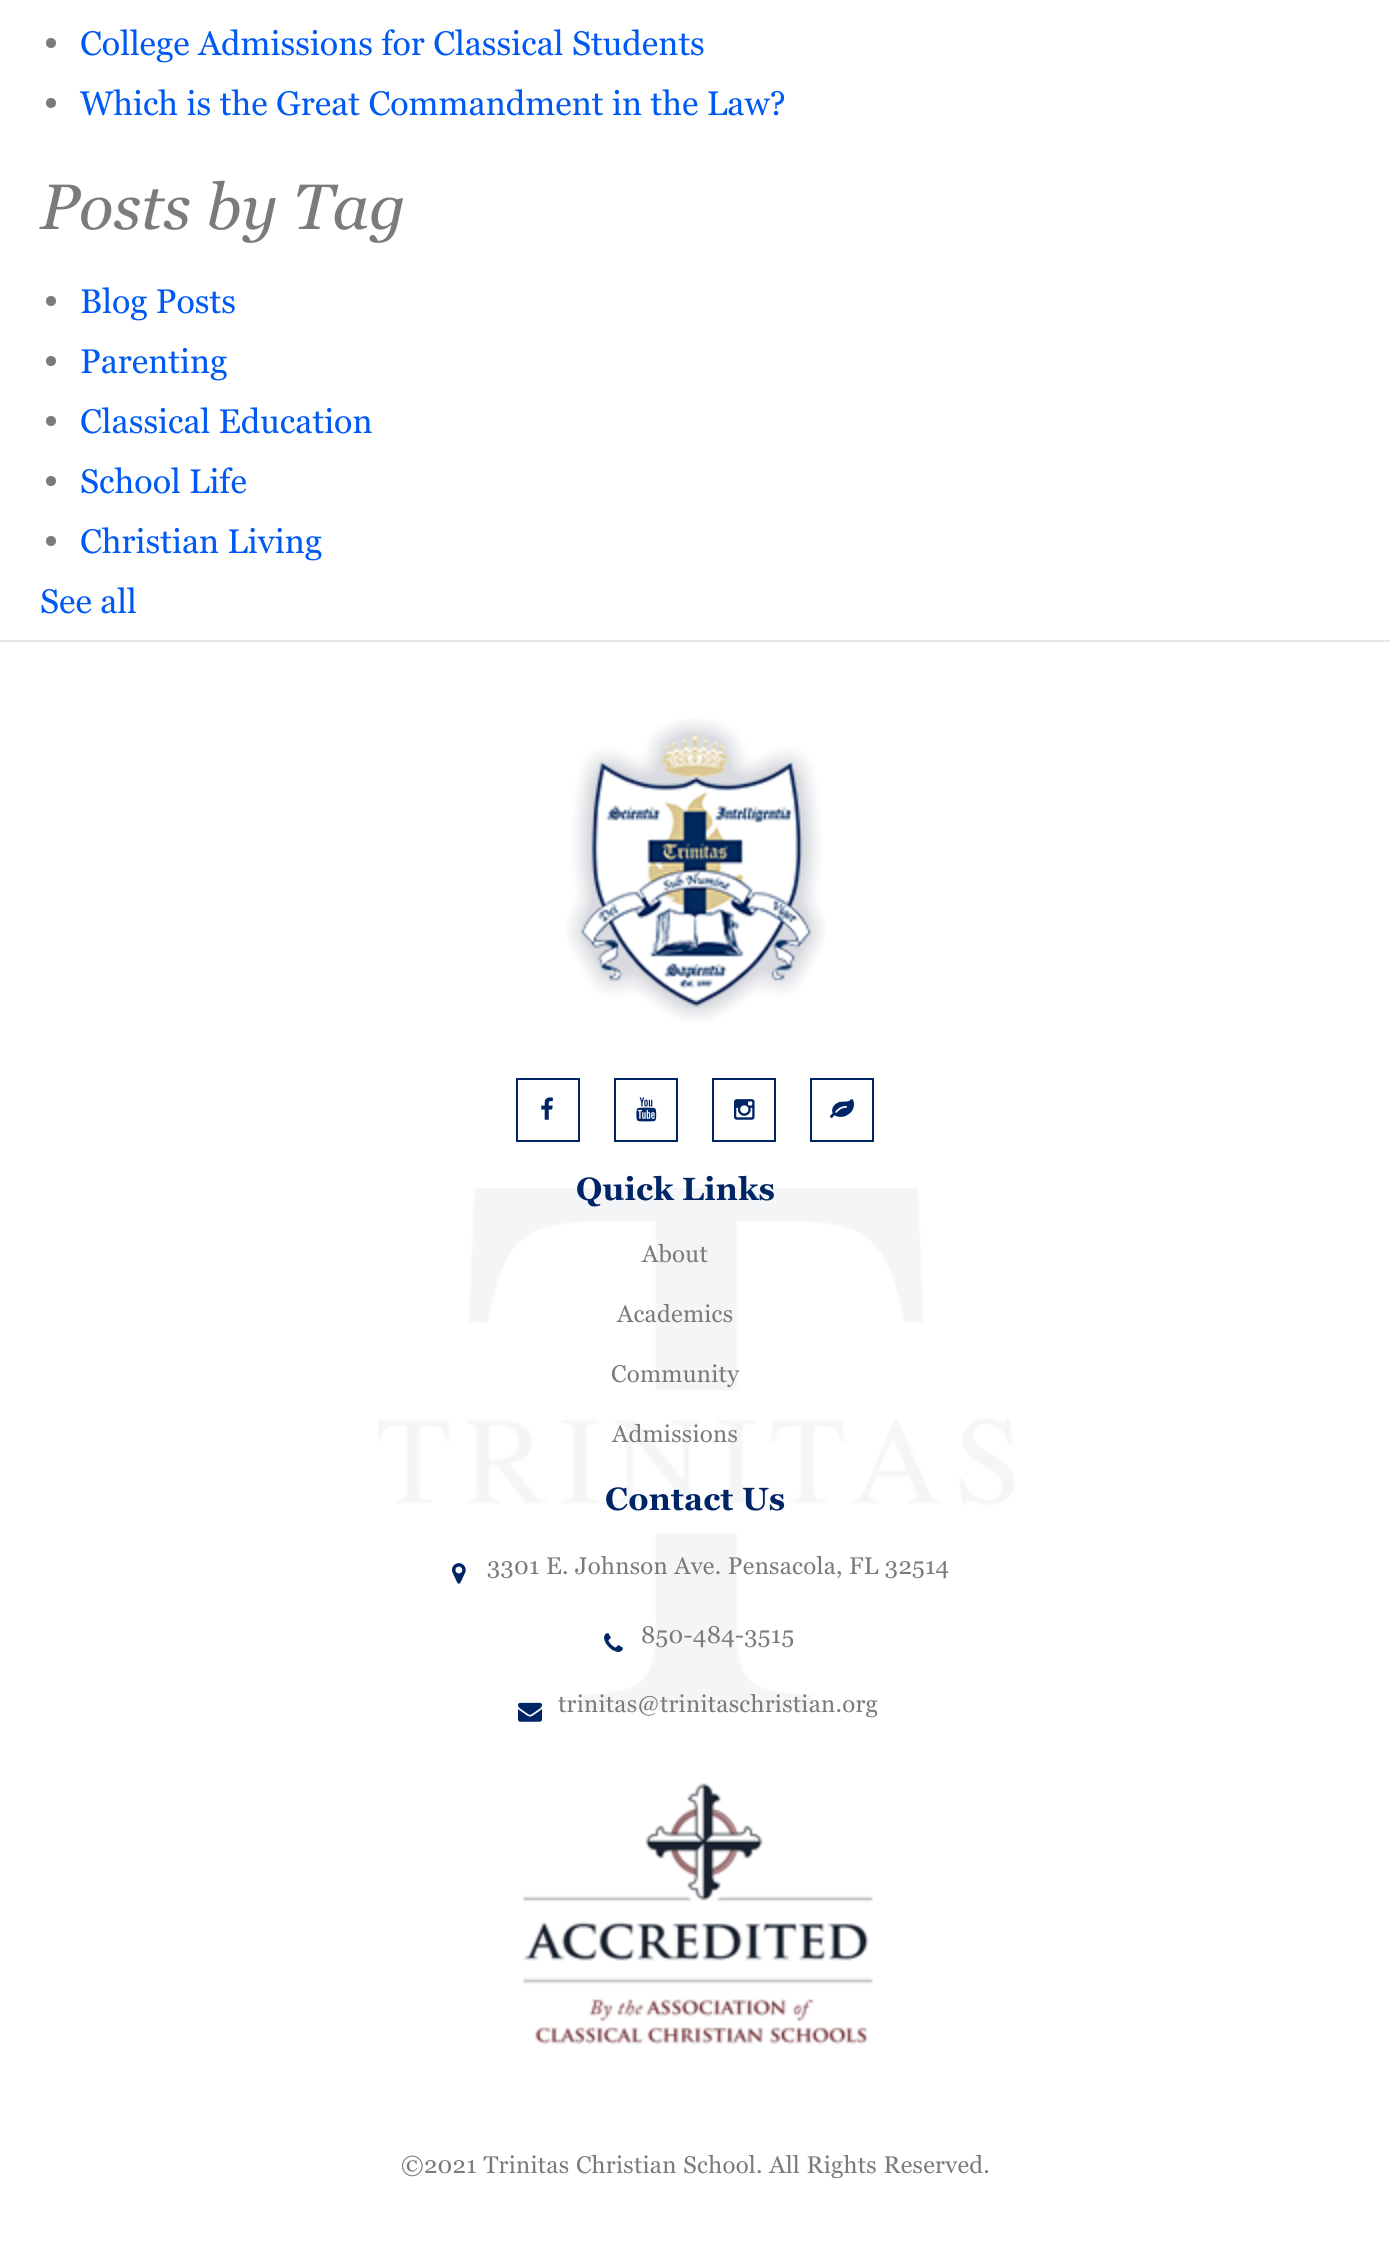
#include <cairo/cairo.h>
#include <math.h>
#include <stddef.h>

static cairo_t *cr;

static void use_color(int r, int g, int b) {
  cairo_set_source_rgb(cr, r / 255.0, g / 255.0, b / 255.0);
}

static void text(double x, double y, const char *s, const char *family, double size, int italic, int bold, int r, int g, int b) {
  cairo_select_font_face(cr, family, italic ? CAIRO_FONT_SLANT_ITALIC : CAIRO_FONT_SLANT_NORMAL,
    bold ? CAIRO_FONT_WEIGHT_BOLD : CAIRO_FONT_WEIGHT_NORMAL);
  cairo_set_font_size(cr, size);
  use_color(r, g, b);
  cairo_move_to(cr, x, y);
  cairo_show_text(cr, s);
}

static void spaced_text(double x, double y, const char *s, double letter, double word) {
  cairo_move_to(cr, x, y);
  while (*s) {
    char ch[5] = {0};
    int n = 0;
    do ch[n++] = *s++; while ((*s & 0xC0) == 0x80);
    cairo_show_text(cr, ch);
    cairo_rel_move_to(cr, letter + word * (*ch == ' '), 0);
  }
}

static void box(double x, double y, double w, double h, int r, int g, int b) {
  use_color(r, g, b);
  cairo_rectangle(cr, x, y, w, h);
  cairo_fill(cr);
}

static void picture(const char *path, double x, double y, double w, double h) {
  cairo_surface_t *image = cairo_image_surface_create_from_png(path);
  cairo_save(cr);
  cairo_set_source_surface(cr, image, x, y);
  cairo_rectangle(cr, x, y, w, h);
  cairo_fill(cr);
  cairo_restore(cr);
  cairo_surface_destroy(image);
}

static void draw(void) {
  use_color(255, 255, 255);
  cairo_paint(cr);
  use_color(123, 123, 123);
  cairo_arc(cr, 51, 43, 5, 0, 2 * M_PI);
  cairo_fill(cr);
  cairo_arc(cr, 51, 103, 5, 0, 2 * M_PI);
  cairo_fill(cr);
  cairo_arc(cr, 51, 301, 5, 0, 2 * M_PI);
  cairo_fill(cr);
  cairo_arc(cr, 51, 361, 5, 0, 2 * M_PI);
  cairo_fill(cr);
  cairo_arc(cr, 51, 421, 5, 0, 2 * M_PI);
  cairo_fill(cr);
  cairo_arc(cr, 51, 481, 5, 0, 2 * M_PI);
  cairo_fill(cr);
  cairo_arc(cr, 51, 541, 5, 0, 2 * M_PI);
  cairo_fill(cr);
  picture("img_01.png", 378, 1188, 636, 522);
  box(0, 640, 1390, 2, 230, 230, 230);
  picture("img_02.png", 567, 719, 258, 303);
  cairo_rectangle(cr, 517, 1079, 62, 62);
  use_color(0, 37, 102);
  cairo_stroke(cr);
  picture("img_03.png", 541, 1097, 12, 23);
  cairo_rectangle(cr, 615, 1079, 62, 62);
  cairo_stroke(cr);
  picture("img_04.png", 636, 1097, 21, 25);
  cairo_rectangle(cr, 713, 1079, 62, 62);
  cairo_stroke(cr);
  picture("img_05.png", 734, 1099, 21, 21);
  cairo_rectangle(cr, 811, 1079, 62, 62);
  cairo_stroke(cr);
  picture("img_06.png", 830, 1099, 24, 19);
  picture("img_07.png", 452, 1563, 14, 21);
  picture("img_08.png", 604, 1633, 19, 19);
  picture("img_09.png", 518, 1702, 24, 20);
  picture("img_10.png", 522, 1783, 352, 262);
  cairo_select_font_face(cr, "Georgia", CAIRO_FONT_SLANT_NORMAL, CAIRO_FONT_WEIGHT_NORMAL);
  cairo_set_font_size(cr, 34);
  use_color(0, 89, 242);
  spaced_text(80, 55, "College Admissions for Classical Students", 0, 0.25);
  spaced_text(80, 115, "Which is the Great Commandment in the Law?", 0, 0.25);
  text(40, 229, "Posts by Tag", "Georgia", 64, 1, 0, 123, 123, 123);
  text(80, 313, "Blog Posts", "Georgia", 34, 0, 0, 0, 89, 242);
  text(80, 373, "Parenting", "Georgia", 34, 0, 0, 0, 89, 242);
  text(80, 433, "Classical Education", "Georgia", 34, 0, 0, 0, 89, 242);
  text(80, 493, "School Life", "Georgia", 34, 0, 0, 0, 89, 242);
  text(80, 553, "Christian Living", "Georgia", 34, 0, 0, 0, 89, 242);
  text(40, 613, "See all", "Georgia", 34, 0, 0, 0, 89, 242);
  cairo_select_font_face(cr, "Georgia", CAIRO_FONT_SLANT_NORMAL, CAIRO_FONT_WEIGHT_BOLD);
  cairo_set_font_size(cr, 32);
  use_color(0, 37, 102);
  spaced_text(576, 1200, "Quick Links", 0.25, 0);
  cairo_select_font_face(cr, "Georgia", CAIRO_FONT_SLANT_NORMAL, CAIRO_FONT_WEIGHT_NORMAL);
  cairo_set_font_size(cr, 24);
  use_color(123, 123, 123);
  spaced_text(642, 1262, "About", 0.28, 0);
  spaced_text(617, 1322, "Academics", 0.28, 0);
  spaced_text(611, 1382, "Community", 0.28, 0);
  spaced_text(612, 1442, "Admissions", 0.28, 0);
  cairo_select_font_face(cr, "Georgia", CAIRO_FONT_SLANT_NORMAL, CAIRO_FONT_WEIGHT_BOLD);
  cairo_set_font_size(cr, 32);
  use_color(0, 37, 102);
  spaced_text(605, 1510, "Contact Us", 0.25, 0);
  cairo_select_font_face(cr, "Georgia", CAIRO_FONT_SLANT_NORMAL, CAIRO_FONT_WEIGHT_NORMAL);
  cairo_set_font_size(cr, 24);
  use_color(123, 123, 123);
  spaced_text(487, 1574, "3301 E. Johnson Ave. Pensacola, FL 32514", 0.28, 0.25);
  spaced_text(641, 1643, "850-484-3515", 0.28, 0);
  spaced_text(558, 1712, "trinitas@trinitaschristian.org", 0.28, 0);
  spaced_text(401, 2173, "©2021 Trinitas Christian School. All Rights Reserved.", 0.28, 0.5);
}

int main(void) {
  cairo_surface_t *surface = cairo_image_surface_create(CAIRO_FORMAT_RGB24, 1390, 2253);
  cr = cairo_create(surface);
  cairo_font_options_t *options = cairo_font_options_create();
  cairo_font_options_set_hint_metrics(options, CAIRO_HINT_METRICS_OFF);
  cairo_font_options_set_hint_style(options, CAIRO_HINT_STYLE_NONE);
  cairo_set_font_options(cr, options);
  cairo_set_miter_limit(cr, 4);
  draw();
  cairo_surface_write_to_png(surface, "out.png");
  cairo_font_options_destroy(options);
  cairo_destroy(cr);
  cairo_surface_destroy(surface);
  return 0;
}
